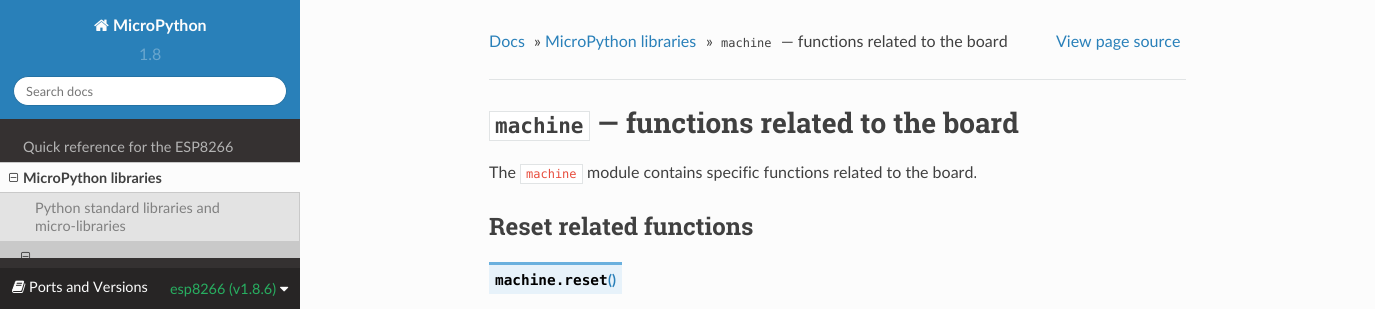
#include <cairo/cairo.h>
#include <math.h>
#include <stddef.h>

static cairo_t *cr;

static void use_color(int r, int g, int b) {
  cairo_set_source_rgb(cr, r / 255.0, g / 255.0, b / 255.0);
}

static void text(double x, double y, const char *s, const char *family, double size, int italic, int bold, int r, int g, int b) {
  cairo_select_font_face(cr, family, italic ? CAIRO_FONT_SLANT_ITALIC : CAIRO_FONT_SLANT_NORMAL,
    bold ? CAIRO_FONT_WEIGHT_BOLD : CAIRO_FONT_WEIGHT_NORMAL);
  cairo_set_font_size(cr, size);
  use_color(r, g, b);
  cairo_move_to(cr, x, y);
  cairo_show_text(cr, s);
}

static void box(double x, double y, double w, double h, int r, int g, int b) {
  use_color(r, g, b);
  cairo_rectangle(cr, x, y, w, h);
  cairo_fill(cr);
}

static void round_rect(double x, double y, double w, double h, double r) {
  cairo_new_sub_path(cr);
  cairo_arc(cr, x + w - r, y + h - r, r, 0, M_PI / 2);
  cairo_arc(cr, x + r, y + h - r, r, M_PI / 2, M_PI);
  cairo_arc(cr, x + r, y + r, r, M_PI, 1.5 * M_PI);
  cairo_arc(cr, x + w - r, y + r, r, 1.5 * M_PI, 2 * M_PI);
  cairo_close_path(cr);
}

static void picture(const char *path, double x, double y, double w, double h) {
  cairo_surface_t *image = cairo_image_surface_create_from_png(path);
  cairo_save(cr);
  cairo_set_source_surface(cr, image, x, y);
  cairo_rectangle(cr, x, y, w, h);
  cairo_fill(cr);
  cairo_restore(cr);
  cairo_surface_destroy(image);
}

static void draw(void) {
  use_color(252, 252, 252);
  cairo_paint(cr);
  box(0, 119, 300, 43, 53, 49, 49);
  box(0, 0, 300, 119, 41, 128, 185);
  picture("img_01.png", 94, 19, 15, 12);
  use_color(255, 255, 255);
  round_rect(13.5, 76.5, 273, 29, 14.5);
  cairo_fill_preserve(cr);
  use_color(36, 114, 164);
  cairo_set_line_width(cr, 1);
  cairo_stroke(cr);
  box(0, 193, 299, 48, 227, 227, 227);
  box(0, 162, 300, 1, 201, 201, 201);
  box(0, 192, 300, 1, 201, 201, 201);
  picture("img_02.png", 9, 172, 10, 10);
  box(299, 193, 1, 48, 201, 201, 201);
  box(0, 241, 300, 17, 201, 201, 201);
  picture("img_03.png", 21, 251, 10, 7);
  box(489, 79, 697, 1, 225, 228, 229);
  use_color(255, 255, 255);
  cairo_rectangle(cr, 489.5, 111.5, 100, 29);
  cairo_fill_preserve(cr);
  use_color(225, 228, 229);
  cairo_stroke(cr);
  use_color(255, 255, 255);
  cairo_rectangle(cr, 520.5, 164.5, 62, 19);
  cairo_fill_preserve(cr);
  use_color(225, 228, 229);
  cairo_stroke(cr);
  box(489, 265, 133, 29, 231, 242, 250);
  box(489, 262, 133, 3, 106, 176, 222);
  box(0, 258, 300, 10, 52, 49, 49);
  box(0, 268, 300, 41, 39, 37, 37);
  picture("img_04.png", 12, 280, 14, 13);
  picture("img_05.png", 280, 286, 9, 6);
  text(113, 31, "MicroPython", "Lato", 16, 0, 1, 252, 252, 252);
  text(139, 60, "1.8", "Lato", 16, 0, 0, 105, 166, 206);
  text(26, 96, "Search docs", "Lato", 12.75, 0, 0, 117, 117, 117);
  text(23, 152, "Quick reference for the ESP8266", "Lato", 14.4, 0, 0, 179, 179, 179);
  text(23, 183, "MicroPython libraries", "Lato", 14.4, 0, 1, 64, 64, 64);
  text(35, 213, "Python standard libraries and", "Lato", 14.4, 0, 0, 128, 128, 128);
  text(35, 231, "micro-libraries", "Lato", 14.4, 0, 0, 128, 128, 128);
  text(489, 47, "Docs", "Lato", 16, 0, 0, 41, 128, 185);
  text(534, 47, "»", "Lato", 16, 0, 0, 64, 64, 64);
  text(545, 47, "MicroPython libraries", "Lato", 16, 0, 0, 41, 128, 185);
  text(706, 47, "»", "Lato", 16, 0, 0, 64, 64, 64);
  text(721, 47, "machine", "DejaVu Sans Mono", 12, 0, 0, 64, 64, 64);
  text(781, 47, "— functions related to the board", "Lato", 16, 0, 0, 64, 64, 64);
  text(1056, 47, "View page source", "Lato", 16, 0, 0, 41, 128, 185);
  text(495, 133, "machine", "DejaVu Sans Mono", 21, 0, 1, 64, 64, 64);
  text(597, 133, "— functions related to the board", "Roboto Slab", 28, 0, 1, 64, 64, 64);
  text(489, 178, "The", "Lato", 16, 0, 0, 64, 64, 64);
  text(526, 178, "machine", "DejaVu Sans Mono", 12, 0, 0, 231, 76, 60);
  text(587, 178, "module contains specific functions related to the board.", "Lato", 16, 0, 0, 64, 64, 64);
  text(489, 235, "Reset related functions", "Roboto Slab", 24, 0, 1, 64, 64, 64);
  text(495, 285, "machine.reset", "DejaVu Sans Mono", 14.4, 0, 1, 0, 0, 0);
  text(608, 285, "()", "Lato", 14.4, 0, 1, 41, 128, 185);
  text(29, 292, "Ports and Versions", "Lato", 14.4, 0, 0, 252, 252, 252);
  text(170, 294, "esp8266 (v1.8.6)", "Lato", 14.4, 0, 0, 39, 174, 96);
}

int main(void) {
  cairo_surface_t *surface = cairo_image_surface_create(CAIRO_FORMAT_RGB24, 1375, 309);
  cr = cairo_create(surface);
  cairo_font_options_t *options = cairo_font_options_create();
  cairo_font_options_set_hint_metrics(options, CAIRO_HINT_METRICS_OFF);
  cairo_font_options_set_hint_style(options, CAIRO_HINT_STYLE_NONE);
  cairo_set_font_options(cr, options);
  cairo_set_miter_limit(cr, 4);
  draw();
  cairo_surface_write_to_png(surface, "out.png");
  cairo_font_options_destroy(options);
  cairo_destroy(cr);
  cairo_surface_destroy(surface);
  return 0;
}
